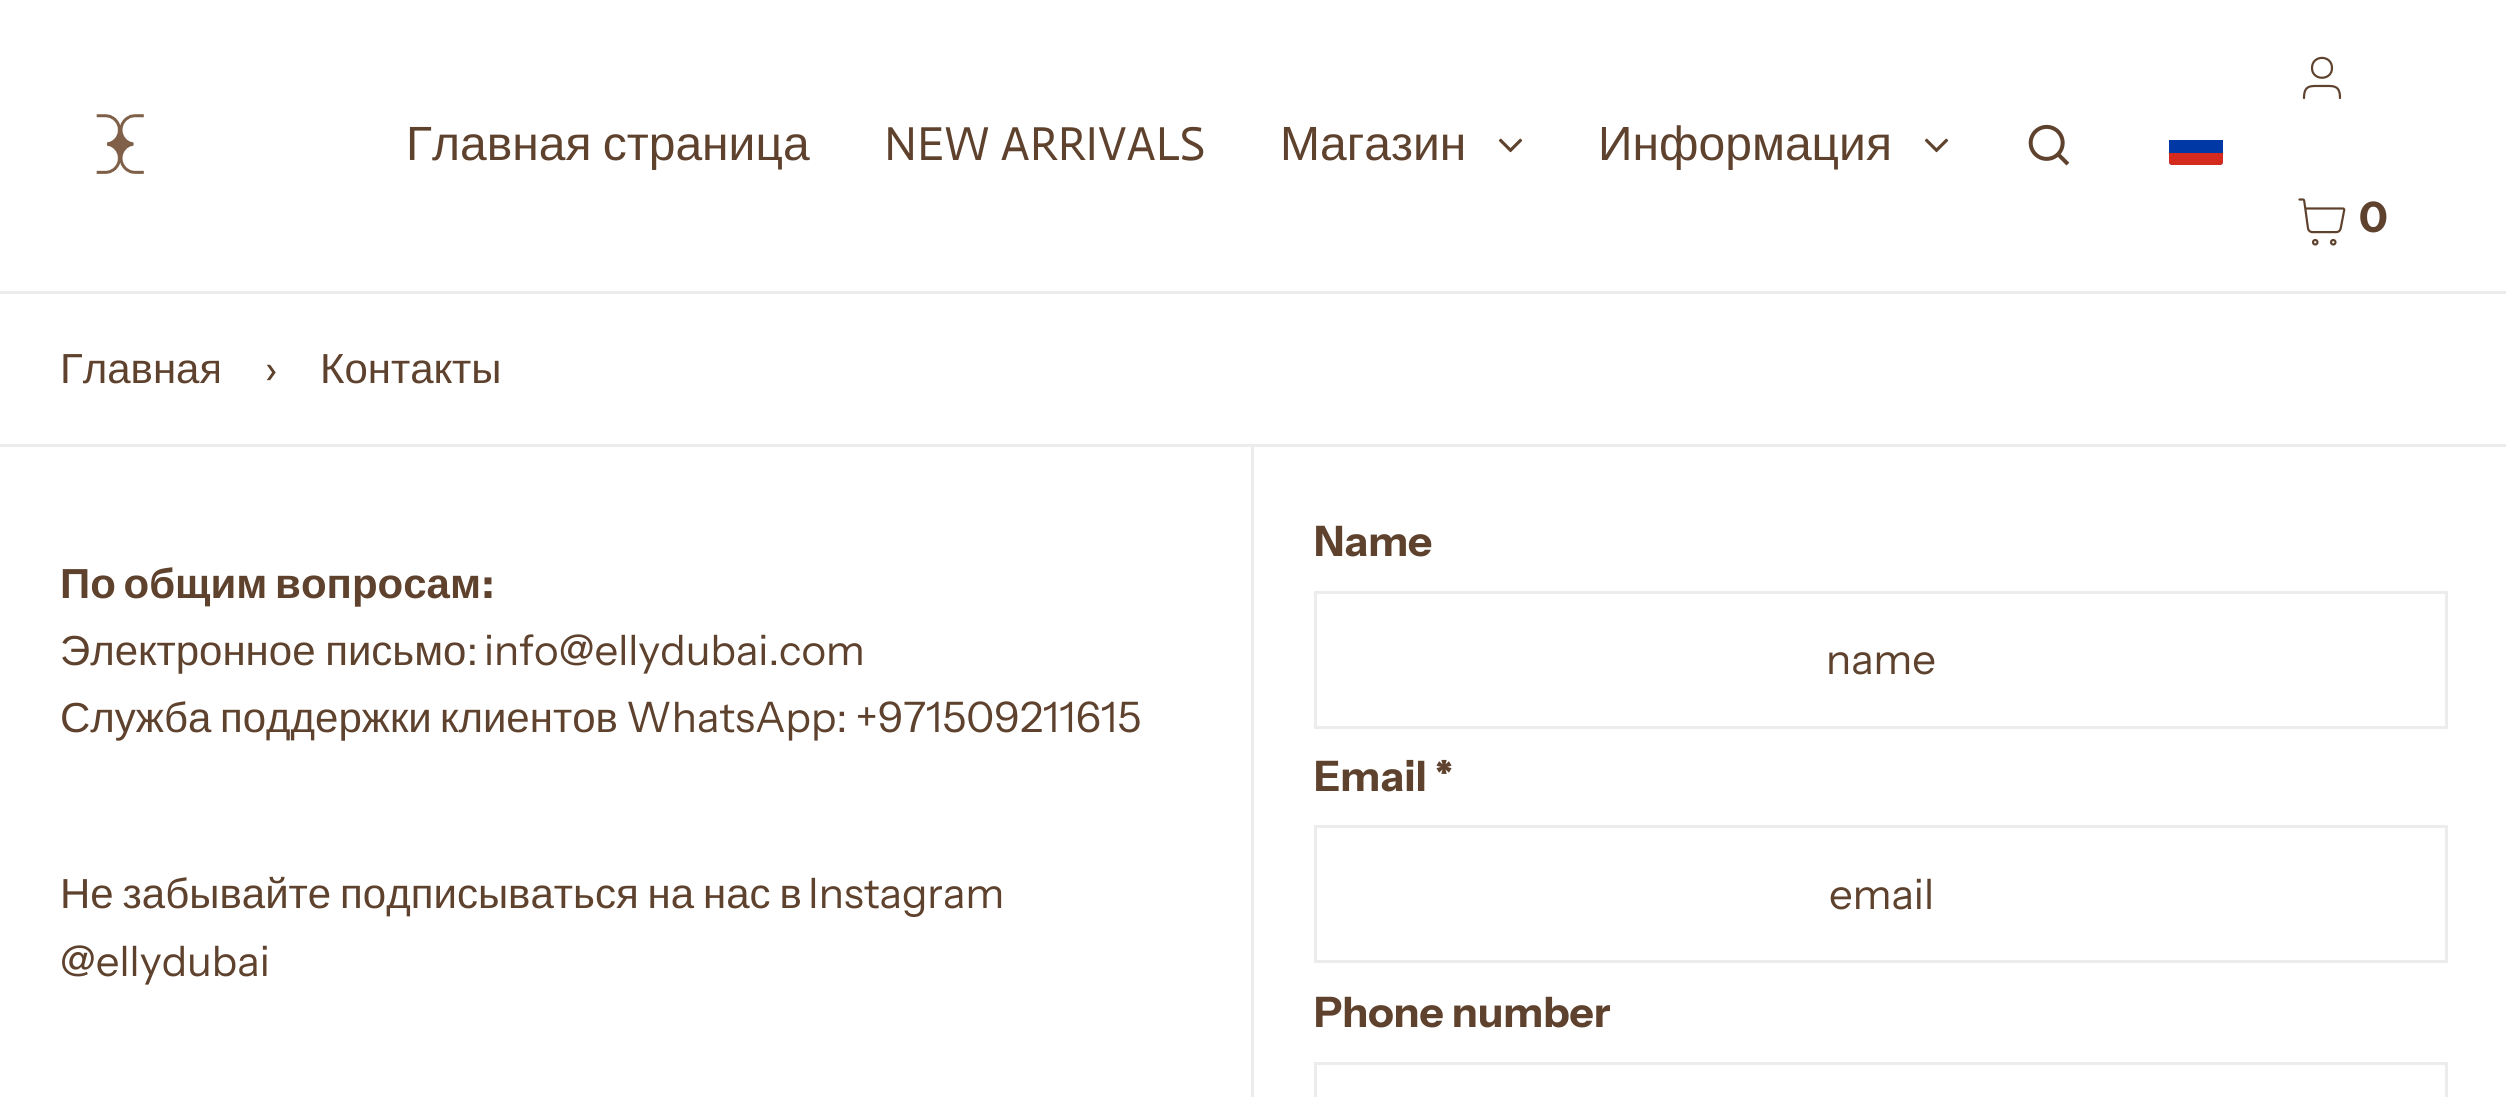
#include <cairo/cairo.h>
#include <math.h>
#include <stddef.h>

static cairo_t *cr;

static void use_color(int r, int g, int b) {
  cairo_set_source_rgb(cr, r / 255.0, g / 255.0, b / 255.0);
}

static void text(double x, double y, const char *s, const char *family, double size, int italic, int bold, int r, int g, int b) {
  cairo_select_font_face(cr, family, italic ? CAIRO_FONT_SLANT_ITALIC : CAIRO_FONT_SLANT_NORMAL,
    bold ? CAIRO_FONT_WEIGHT_BOLD : CAIRO_FONT_WEIGHT_NORMAL);
  cairo_set_font_size(cr, size);
  use_color(r, g, b);
  cairo_move_to(cr, x, y);
  cairo_show_text(cr, s);
}

static void spaced_text(double x, double y, const char *s, double letter, double word) {
  cairo_move_to(cr, x, y);
  while (*s) {
    char ch[5] = {0};
    int n = 0;
    do ch[n++] = *s++; while ((*s & 0xC0) == 0x80);
    cairo_show_text(cr, ch);
    cairo_rel_move_to(cr, letter + word * (*ch == ' '), 0);
  }
}

static void box(double x, double y, double w, double h, int r, int g, int b) {
  use_color(r, g, b);
  cairo_rectangle(cr, x, y, w, h);
  cairo_fill(cr);
}

static void picture(const char *path, double x, double y, double w, double h) {
  cairo_surface_t *image = cairo_image_surface_create_from_png(path);
  cairo_save(cr);
  cairo_set_source_surface(cr, image, x, y);
  cairo_rectangle(cr, x, y, w, h);
  cairo_fill(cr);
  cairo_restore(cr);
  cairo_surface_destroy(image);
}

static void draw(void) {
  use_color(255, 255, 255);
  cairo_paint(cr);
  box(0, 291, 2506, 3, 236, 236, 236);
  picture("img_01.png", 96, 114, 48, 60);
  picture("img_02.png", 1498, 138, 25, 15);
  picture("img_02.png", 1924, 138, 25, 15);
  picture("img_03.png", 2028, 124, 42, 42);
  use_color(0, 57, 166);
  cairo_new_path(cr);
  cairo_move_to(cr, 2169, 140);
  cairo_line_to(cr, 2223, 140);
  cairo_line_to(cr, 2223, 162);
  cairo_curve_to(cr, 2223, 163.5, 2221.5, 165, 2220, 165);
  cairo_line_to(cr, 2172, 165);
  cairo_curve_to(cr, 2170.5, 165, 2169, 163.5, 2169, 162);
  cairo_close_path(cr);
  cairo_fill(cr);
  use_color(213, 43, 30);
  cairo_new_path(cr);
  cairo_move_to(cr, 2169, 153);
  cairo_line_to(cr, 2223, 153);
  cairo_line_to(cr, 2223, 162);
  cairo_curve_to(cr, 2223, 163.5, 2221.5, 165, 2220, 165);
  cairo_line_to(cr, 2172, 165);
  cairo_curve_to(cr, 2170.5, 165, 2169, 163.5, 2169, 162);
  cairo_close_path(cr);
  cairo_fill(cr);
  cairo_new_path(cr);
  cairo_move_to(cr, 2340, 98);
  cairo_curve_to(cr, 2340, 84.5, 2333, 86, 2322, 86);
  cairo_curve_to(cr, 2311, 86, 2304, 84.5, 2304, 98);
  cairo_move_to(cr, 2332, 68);
  cairo_curve_to(cr, 2332, 81, 2312, 81, 2312, 68);
  cairo_curve_to(cr, 2312, 54.5, 2332, 54.5, 2332, 68);
  cairo_close_path(cr);
  use_color(94, 66, 46);
  cairo_set_line_width(cr, 2.2);
  cairo_set_line_cap(cr, CAIRO_LINE_CAP_ROUND);
  cairo_set_line_join(cr, CAIRO_LINE_JOIN_ROUND);
  cairo_stroke(cr);
  picture("img_04.png", 2298, 198, 48, 48);
  box(0, 444, 2506, 3, 236, 236, 236);
  box(1251, 447, 3, 650, 236, 236, 236);
  cairo_rectangle(cr, 1315.5, 592.5, 1131, 135);
  cairo_set_line_width(cr, 3);
  cairo_set_line_cap(cr, CAIRO_LINE_CAP_BUTT);
  cairo_set_line_join(cr, CAIRO_LINE_JOIN_MITER);
  cairo_stroke(cr);
  cairo_rectangle(cr, 1315.5, 826.5, 1131, 135);
  cairo_stroke(cr);
  cairo_rectangle(cr, 1315.5, 1063.5, 1131, 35);
  cairo_stroke(cr);
  cairo_select_font_face(cr, "Liberation Sans", CAIRO_FONT_SLANT_NORMAL, CAIRO_FONT_WEIGHT_NORMAL);
  cairo_set_font_size(cr, 48);
  use_color(94, 66, 46);
  spaced_text(406, 160, "Главная страница", 0, -2);
  text(884, 160, "NEW ARRIVALS", "Actor", 48, 0, 0, 94, 66, 46);
  text(1280, 160, "Магазин", "Liberation Sans", 48, 0, 0, 94, 66, 46);
  text(1598, 160, "Информация", "Liberation Sans", 48, 0, 0, 94, 66, 46);
  cairo_select_font_face(cr, "Instrument Sans", CAIRO_FONT_SLANT_NORMAL, CAIRO_FONT_WEIGHT_BOLD);
  cairo_set_font_size(cr, 42);
  spaced_text(2359, 232, "0", 3, 0);
  text(60, 383, "Главная", "Liberation Sans", 42, 0, 0, 94, 66, 46);
  text(264, 383, "›", "Instrument Sans", 42, 0, 0, 94, 66, 46);
  text(320, 383, "Контакты", "Liberation Sans", 42, 0, 0, 94, 66, 46);
  cairo_select_font_face(cr, "Liberation Sans", CAIRO_FONT_SLANT_NORMAL, CAIRO_FONT_WEIGHT_BOLD);
  spaced_text(60, 598, "По общим вопросам", 0, -4);
  text(482, 598, ":", "Instrument Sans", 42, 0, 1, 94, 66, 46);
  cairo_select_font_face(cr, "Liberation Sans", CAIRO_FONT_SLANT_NORMAL, CAIRO_FONT_WEIGHT_NORMAL);
  spaced_text(60, 665, "Электронное письмо", 0, -2);
  text(467, 665, ":", "Instrument Sans", 42, 0, 0, 94, 66, 46);
  text(484, 665, "info@ellydubai.com", "Instrument Sans", 42, 0, 0, 94, 66, 46);
  text(60, 732, "Служба", "Liberation Sans", 42, 0, 0, 94, 66, 46);
  text(220, 732, "поддержки", "Liberation Sans", 42, 0, 0, 94, 66, 46);
  text(440, 732, "клиентов", "Liberation Sans", 42, 0, 0, 94, 66, 46);
  text(626, 732, "WhatsApp: +971509211615", "Instrument Sans", 42, 0, 0, 94, 66, 46);
  cairo_select_font_face(cr, "Liberation Sans", CAIRO_FONT_SLANT_NORMAL, CAIRO_FONT_WEIGHT_NORMAL);
  spaced_text(60, 908, "Не забывайте подписываться на нас в", 0, -2.75);
  text(808, 908, "Instagram", "Instrument Sans", 42, 0, 0, 94, 66, 46);
  text(60, 976, "@ellydubai", "Instrument Sans", 42, 0, 0, 94, 66, 46);
  text(1314, 556, "Name", "Instrument Sans", 42, 0, 1, 94, 66, 46);
  text(1826, 674, "name", "Instrument Sans", 42, 0, 0, 94, 66, 46);
  text(1314, 791, "Email *", "Instrument Sans", 42, 0, 1, 94, 66, 46);
  text(1829, 909, "email", "Instrument Sans", 42, 0, 0, 94, 66, 46);
  text(1314, 1027, "Phone number", "Instrument Sans", 42, 0, 1, 94, 66, 46);
}

int main(void) {
  cairo_surface_t *surface = cairo_image_surface_create(CAIRO_FORMAT_RGB24, 2506, 1097);
  cr = cairo_create(surface);
  cairo_font_options_t *options = cairo_font_options_create();
  cairo_font_options_set_hint_metrics(options, CAIRO_HINT_METRICS_OFF);
  cairo_font_options_set_hint_style(options, CAIRO_HINT_STYLE_NONE);
  cairo_set_font_options(cr, options);
  cairo_set_miter_limit(cr, 4);
  draw();
  cairo_surface_write_to_png(surface, "out.png");
  cairo_font_options_destroy(options);
  cairo_destroy(cr);
  cairo_surface_destroy(surface);
  return 0;
}
